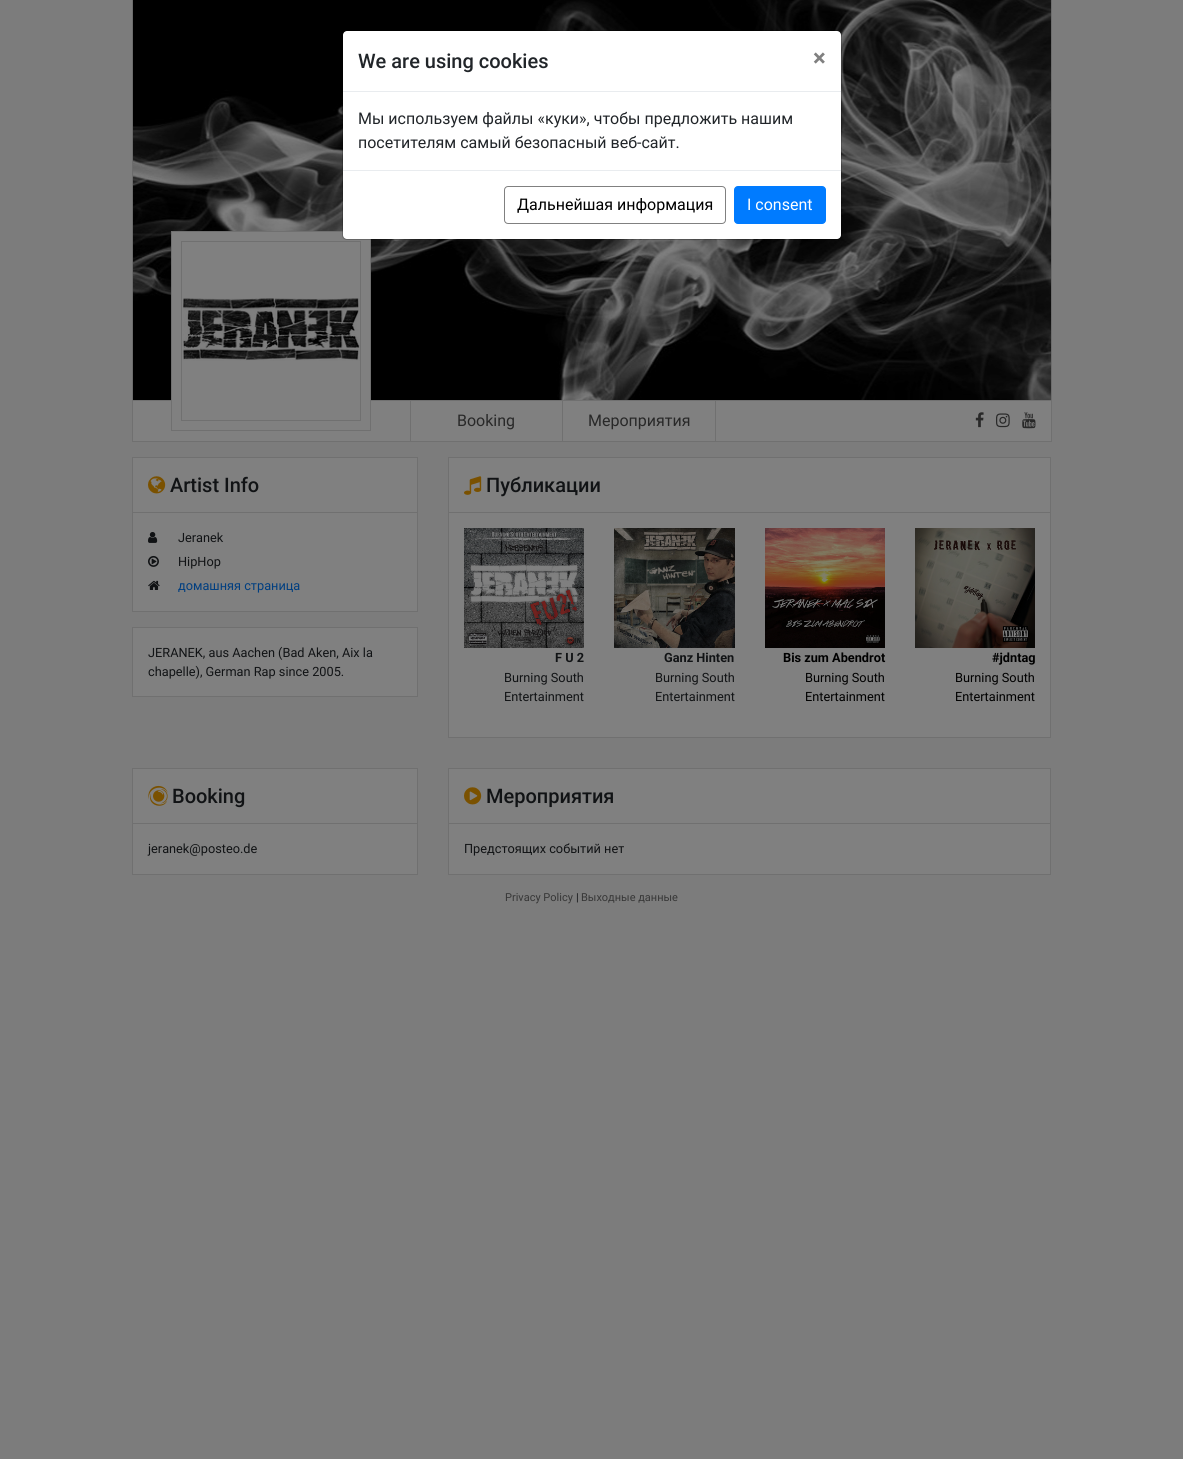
#include <cairo/cairo.h>
#include <math.h>
#include <stddef.h>

static cairo_t *cr;

static void use_color(int r, int g, int b) {
  cairo_set_source_rgb(cr, r / 255.0, g / 255.0, b / 255.0);
}

static void text(double x, double y, const char *s, const char *family, double size, int italic, int bold, int r, int g, int b) {
  cairo_select_font_face(cr, family, italic ? CAIRO_FONT_SLANT_ITALIC : CAIRO_FONT_SLANT_NORMAL,
    bold ? CAIRO_FONT_WEIGHT_BOLD : CAIRO_FONT_WEIGHT_NORMAL);
  cairo_set_font_size(cr, size);
  use_color(r, g, b);
  cairo_move_to(cr, x, y);
  cairo_show_text(cr, s);
}

static void box(double x, double y, double w, double h, int r, int g, int b) {
  use_color(r, g, b);
  cairo_rectangle(cr, x, y, w, h);
  cairo_fill(cr);
}

static void round_rect(double x, double y, double w, double h, double r) {
  cairo_new_sub_path(cr);
  cairo_arc(cr, x + w - r, y + h - r, r, 0, M_PI / 2);
  cairo_arc(cr, x + r, y + h - r, r, M_PI / 2, M_PI);
  cairo_arc(cr, x + r, y + r, r, M_PI, 1.5 * M_PI);
  cairo_arc(cr, x + w - r, y + r, r, 1.5 * M_PI, 2 * M_PI);
  cairo_close_path(cr);
}

static void picture(const char *path, double x, double y, double w, double h) {
  cairo_surface_t *image = cairo_image_surface_create_from_png(path);
  cairo_save(cr);
  cairo_set_source_surface(cr, image, x, y);
  cairo_rectangle(cr, x, y, w, h);
  cairo_fill(cr);
  cairo_restore(cr);
  cairo_surface_destroy(image);
}

static void draw(void) {
  use_color(124, 124, 124);
  cairo_paint(cr);
  picture("img_01.png", 133, 0, 918, 400);
  use_color(128, 128, 128);
  cairo_rectangle(cr, 132.5, 400.5, 919, 41);
  cairo_fill_preserve(cr);
  use_color(112, 112, 112);
  cairo_set_line_width(cr, 1);
  cairo_stroke(cr);
  box(172, 232, 198, 169, 128, 128, 128);
  cairo_rectangle(cr, 171.5, 231.5, 199, 199);
  use_color(112, 112, 112);
  cairo_stroke(cr);
  use_color(255, 255, 255);
  round_rect(343, 31, 498, 208, 4);
  cairo_fill(cr);
  round_rect(342.5, 30.5, 499, 209, 4.5);
  cairo_set_source_rgba(cr, 0, 0, 0, 0.2);
  cairo_stroke(cr);
  box(343, 91, 498, 1, 233, 236, 239);
  box(343, 170, 498, 1, 233, 236, 239);
  round_rect(504.5, 186.5, 221, 37, 3.5);
  use_color(128, 128, 128);
  cairo_stroke(cr);
  use_color(0, 123, 255);
  round_rect(734.5, 186.5, 91, 37, 3.5);
  cairo_fill_preserve(cr);
  cairo_stroke(cr);
  box(132, 0, 1, 400, 108, 108, 108);
  box(1051, 0, 1, 400, 108, 108, 108);
  cairo_rectangle(cr, 181.5, 241.5, 179, 179);
  use_color(112, 112, 112);
  cairo_stroke(cr);
  picture("img_02.png", 183, 298, 177, 63);
  box(562, 401, 1, 40, 112, 112, 112);
  box(410, 401, 1, 40, 112, 112, 112);
  box(715, 401, 1, 40, 112, 112, 112);
  picture("img_03.png", 975, 412, 9, 16);
  picture("img_04.png", 996, 413, 14, 15);
  picture("img_05.png", 1022, 412, 14, 17);
  use_color(128, 128, 128);
  cairo_rectangle(cr, 132.5, 457.5, 285, 154);
  cairo_fill_preserve(cr);
  use_color(112, 112, 112);
  cairo_stroke(cr);
  picture("img_06.png", 148, 476, 18, 18);
  box(133, 512, 284, 1, 112, 112, 112);
  picture("img_07.png", 148, 532, 10, 11);
  picture("img_08.png", 148, 555, 11, 12);
  picture("img_09.png", 148, 580, 12, 10);
  use_color(128, 128, 128);
  cairo_rectangle(cr, 132.5, 627.5, 285, 69);
  cairo_fill_preserve(cr);
  use_color(112, 112, 112);
  cairo_stroke(cr);
  use_color(128, 128, 128);
  cairo_rectangle(cr, 448.5, 457.5, 602, 280);
  cairo_fill_preserve(cr);
  use_color(112, 112, 112);
  cairo_stroke(cr);
  picture("img_10.png", 464, 476, 18, 19);
  box(449, 512, 601, 1, 112, 112, 112);
  picture("img_11.png", 464, 528, 120, 120);
  picture("img_12.png", 614, 528, 121, 120);
  picture("img_13.png", 765, 528, 120, 120);
  picture("img_14.png", 915, 528, 120, 120);
  use_color(128, 128, 128);
  cairo_rectangle(cr, 132.5, 768.5, 285, 106);
  cairo_fill_preserve(cr);
  use_color(112, 112, 112);
  cairo_stroke(cr);
  picture("img_15.png", 148, 785, 20, 21);
  box(133, 823, 284, 1, 112, 112, 112);
  use_color(128, 128, 128);
  cairo_rectangle(cr, 448.5, 768.5, 602, 106);
  cairo_fill_preserve(cr);
  use_color(112, 112, 112);
  cairo_stroke(cr);
  picture("img_16.png", 464, 787, 18, 18);
  box(449, 823, 601, 1, 112, 112, 112);
  text(358, 68, "We are using cookies", "Roboto Medium", 20, 0, 0, 33, 37, 41);
  text(813, 66, "×", "Roboto", 24, 0, 1, 128, 128, 128);
  text(358, 124, "Мы используем файлы «куки», чтобы предложить нашим", "Roboto", 16, 0, 0, 33, 37, 41);
  text(358, 148, "посетителям самый безопасный веб-сайт.", "Roboto", 16, 0, 0, 33, 37, 41);
  text(517, 210, "Дальнейшая информация", "Roboto", 16, 0, 0, 0, 0, 0);
  text(747, 210, "I consent", "Roboto", 16, 0, 0, 255, 255, 255);
  text(457, 426, "Booking", "Roboto", 16, 0, 0, 40, 40, 40);
  text(588, 426, "Мероприятия", "Roboto", 16, 0, 0, 40, 40, 40);
  text(170, 492, "Artist Info", "Roboto Medium", 20, 0, 0, 17, 19, 21);
  text(178, 542, "Jeranek", "Roboto", 12.75, 0, 0, 17, 19, 21);
  text(178, 566, "HipHop", "Roboto", 12.75, 0, 0, 17, 19, 21);
  text(178, 590, "домашняя страница", "Roboto", 12.75, 0, 0, 0, 62, 128);
  text(148, 657, "JERANEK, aus Aachen (Bad Aken, Aix la", "Roboto", 12.75, 0, 0, 17, 19, 21);
  text(148, 676, "chapelle), German Rap since 2005.", "Roboto", 12.75, 0, 0, 17, 19, 21);
  text(486, 492, "Публикации", "Roboto Medium", 20, 0, 0, 17, 19, 21);
  text(555, 662, "F U 2", "Roboto", 12.75, 0, 1, 17, 19, 21);
  text(504, 682, "Burning South", "Roboto", 12.75, 0, 0, 17, 19, 21);
  text(504, 701, "Entertainment", "Roboto", 12.75, 0, 0, 17, 19, 21);
  text(664, 662, "Ganz Hinten", "Roboto", 12.75, 0, 1, 17, 19, 21);
  text(655, 682, "Burning South", "Roboto", 12.75, 0, 0, 17, 19, 21);
  text(655, 701, "Entertainment", "Roboto", 12.75, 0, 0, 17, 19, 21);
  text(783, 662, "Bis zum Abendrot", "Roboto", 12.75, 0, 1, 0, 0, 0);
  text(805, 682, "Burning South", "Roboto", 12.75, 0, 0, 0, 0, 0);
  text(805, 701, "Entertainment", "Roboto", 12.75, 0, 0, 0, 0, 0);
  text(992, 662, "#jdntag", "Roboto", 12.75, 0, 1, 0, 0, 0);
  text(955, 682, "Burning South", "Roboto", 12.75, 0, 0, 0, 0, 0);
  text(955, 701, "Entertainment", "Roboto", 12.75, 0, 0, 0, 0, 0);
  text(172, 803, "Booking", "Roboto Medium", 20, 0, 0, 17, 19, 21);
  text(148, 853, "jeranek@posteo.de", "Roboto", 12.75, 0, 0, 17, 19, 21);
  text(486, 803, "Мероприятия", "Roboto Medium", 20, 0, 0, 17, 19, 21);
  text(464, 853, "Предстоящих событий нет", "Roboto", 12.75, 0, 0, 17, 19, 21);
  text(505, 901, "Privacy Policy", "Roboto", 11, 0, 0, 55, 55, 55);
  text(576, 901, "|", "Roboto", 11, 0, 0, 17, 19, 21);
  text(581, 901, "Выходные данные", "Roboto", 11, 0, 0, 55, 55, 55);
}

int main(void) {
  cairo_surface_t *surface = cairo_image_surface_create(CAIRO_FORMAT_RGB24, 1183, 1459);
  cr = cairo_create(surface);
  cairo_font_options_t *options = cairo_font_options_create();
  cairo_font_options_set_hint_metrics(options, CAIRO_HINT_METRICS_OFF);
  cairo_font_options_set_hint_style(options, CAIRO_HINT_STYLE_NONE);
  cairo_set_font_options(cr, options);
  cairo_set_miter_limit(cr, 4);
  draw();
  cairo_surface_write_to_png(surface, "out.png");
  cairo_font_options_destroy(options);
  cairo_destroy(cr);
  cairo_surface_destroy(surface);
  return 0;
}
